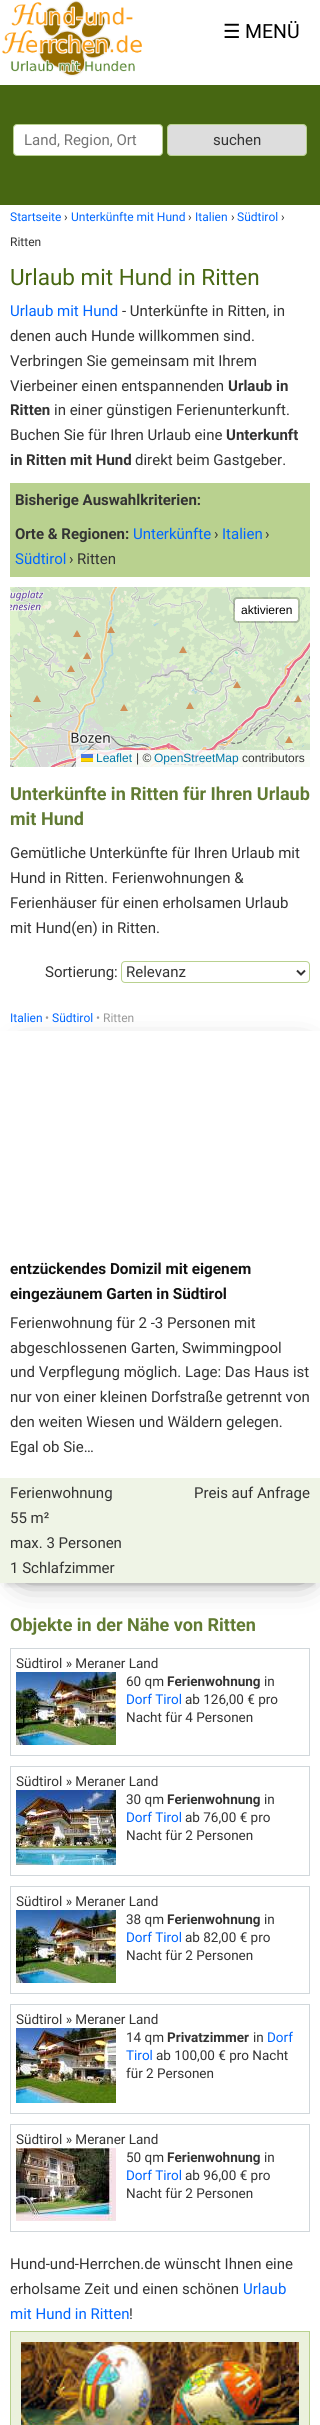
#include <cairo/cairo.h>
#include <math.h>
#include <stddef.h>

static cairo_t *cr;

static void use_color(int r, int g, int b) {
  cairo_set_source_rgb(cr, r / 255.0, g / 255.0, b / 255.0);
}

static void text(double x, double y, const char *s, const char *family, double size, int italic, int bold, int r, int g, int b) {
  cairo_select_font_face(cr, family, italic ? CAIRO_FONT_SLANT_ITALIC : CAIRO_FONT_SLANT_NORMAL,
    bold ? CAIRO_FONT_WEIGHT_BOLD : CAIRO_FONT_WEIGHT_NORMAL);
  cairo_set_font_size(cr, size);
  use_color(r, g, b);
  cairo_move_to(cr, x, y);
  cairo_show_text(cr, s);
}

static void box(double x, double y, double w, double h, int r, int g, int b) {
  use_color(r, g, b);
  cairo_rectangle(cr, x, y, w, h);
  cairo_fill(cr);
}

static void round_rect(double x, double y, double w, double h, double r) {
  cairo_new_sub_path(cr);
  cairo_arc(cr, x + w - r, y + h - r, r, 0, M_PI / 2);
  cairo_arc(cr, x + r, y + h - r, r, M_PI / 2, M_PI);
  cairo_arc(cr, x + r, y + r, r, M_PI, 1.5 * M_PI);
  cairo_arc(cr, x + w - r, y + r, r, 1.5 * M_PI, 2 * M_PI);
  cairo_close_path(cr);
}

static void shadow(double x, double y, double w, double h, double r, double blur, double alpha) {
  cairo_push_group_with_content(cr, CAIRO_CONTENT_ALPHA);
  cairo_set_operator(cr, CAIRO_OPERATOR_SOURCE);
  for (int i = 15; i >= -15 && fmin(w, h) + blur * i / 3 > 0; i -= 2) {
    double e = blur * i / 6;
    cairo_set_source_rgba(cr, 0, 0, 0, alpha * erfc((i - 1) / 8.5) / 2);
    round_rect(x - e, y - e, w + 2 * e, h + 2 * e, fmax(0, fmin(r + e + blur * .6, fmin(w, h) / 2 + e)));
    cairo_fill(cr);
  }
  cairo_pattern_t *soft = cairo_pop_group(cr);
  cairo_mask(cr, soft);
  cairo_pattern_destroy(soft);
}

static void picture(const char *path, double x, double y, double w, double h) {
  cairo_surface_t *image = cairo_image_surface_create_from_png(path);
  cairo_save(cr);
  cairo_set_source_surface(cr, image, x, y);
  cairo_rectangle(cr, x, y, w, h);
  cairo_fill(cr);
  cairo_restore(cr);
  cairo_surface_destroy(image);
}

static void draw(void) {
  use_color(255, 255, 255);
  cairo_paint(cr);
  picture("img_01.png", 2, 0, 140, 77);
  box(0, 85, 320, 120, 71, 103, 18);
  use_color(255, 255, 255);
  round_rect(13.5, 124.5, 149, 31, 3.5);
  cairo_fill_preserve(cr);
  use_color(185, 209, 143);
  cairo_set_line_width(cr, 1);
  cairo_stroke(cr);
  use_color(221, 221, 221);
  round_rect(167.5, 124.5, 139, 31, 3.5);
  cairo_fill_preserve(cr);
  use_color(185, 209, 143);
  cairo_stroke(cr);
  box(10, 483, 300, 94, 185, 209, 143);
  picture("img_02.png", 10, 587, 184, 23);
  picture("img_03.png", 194, 587, 116, 23);
  picture("img_04.png", 10, 610, 184, 157);
  picture("img_05.png", 194, 610, 116, 157);
  use_color(255, 255, 255);
  round_rect(235, 599, 63, 22, 2);
  cairo_fill(cr);
  round_rect(234, 598, 65, 24, 3);
  cairo_set_source_rgba(cr, 0, 0, 0, 0.2);
  cairo_set_line_width(cr, 2);
  cairo_stroke(cr);
  cairo_set_source_rgba(cr, 1, 1, 1, 0.8);
  cairo_rectangle(cr, 76, 750, 234, 17);
  cairo_fill(cr);
  box(81, 754, 12, 4, 76, 123, 225);
  box(81, 758, 12, 3, 255, 213, 0);
  box(81, 761, 12, 1, 224, 188, 0);
  round_rect(121.5, 961.5, 188, 21, 3.5);
  use_color(185, 209, 143);
  cairo_set_line_width(cr, 1);
  cairo_stroke(cr);
  cairo_new_path(cr);
  cairo_move_to(cr, 297, 970.5);
  cairo_line_to(cr, 301, 974.5);
  cairo_line_to(cr, 305, 970.5);
  use_color(51, 51, 51);
  cairo_set_line_width(cr, 2);
  cairo_stroke(cr);
  cairo_save(cr);
  cairo_rectangle(cr, 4, 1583, 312, 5);
  cairo_clip(cr);
  use_color(33, 33, 33);
  shadow(6, 1019, 308, 566, 0, 3, 0.14);
  cairo_restore(cr);
  cairo_save(cr);
  cairo_set_fill_rule(cr, CAIRO_FILL_RULE_EVEN_ODD);
  cairo_new_path(cr);
  cairo_move_to(cr, 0, 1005);
  cairo_line_to(cr, 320, 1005);
  cairo_line_to(cr, 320, 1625);
  cairo_line_to(cr, 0, 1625);
  cairo_close_path(cr);
  cairo_move_to(cr, 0, 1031);
  cairo_line_to(cr, 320, 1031);
  cairo_line_to(cr, 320, 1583);
  cairo_line_to(cr, 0, 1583);
  cairo_close_path(cr);
  cairo_clip(cr);
  use_color(0, 0, 0);
  shadow(25, 1059, 280, 512, 0, 17.5, 0.75);
  cairo_restore(cr);
  box(0, 1478, 320, 105, 239, 244, 230);
  cairo_rectangle(cr, 10.5, 1648.5, 299, 107);
  use_color(209, 215, 219);
  cairo_set_line_width(cr, 1);
  cairo_stroke(cr);
  picture("img_06.png", 16, 1672, 100, 73);
  cairo_rectangle(cr, 10.5, 1766.5, 299, 109);
  cairo_stroke(cr);
  picture("img_07.png", 16, 1790, 100, 75);
  cairo_rectangle(cr, 10.5, 1886.5, 299, 107);
  cairo_stroke(cr);
  picture("img_06.png", 16, 1910, 100, 73);
  cairo_rectangle(cr, 10.5, 2004.5, 299, 109);
  cairo_stroke(cr);
  picture("img_08.png", 16, 2028, 100, 75);
  cairo_rectangle(cr, 10.5, 2124.5, 299, 107);
  cairo_stroke(cr);
  picture("img_09.png", 16, 2148, 100, 73);
  use_color(235, 241, 221);
  cairo_rectangle(cr, 10.5, 2331.5, 299, 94);
  cairo_fill_preserve(cr);
  use_color(185, 209, 143);
  cairo_stroke(cr);
  picture("img_10.png", 21, 2342, 278, 83);
  text(223, 38, "☰", "DejaVu Sans", 19.5, 0, 0, 0, 0, 0);
  text(245, 38, "MENÜ", "Roboto", 19.5, 0, 0, 0, 0, 0);
  text(24, 145, "Land, Region, Ort", "Roboto", 15, 0, 0, 117, 117, 117);
  text(213, 145, "suchen", "Roboto", 15, 0, 0, 51, 51, 51);
  text(10, 221, "Startseite", "Roboto", 12, 0, 0, 0, 102, 255);
  text(64, 221, "›", "Roboto", 12, 0, 0, 51, 51, 51);
  text(71, 221, "Unterkünfte mit Hund", "Roboto", 12, 0, 0, 0, 102, 255);
  text(188, 221, "›", "Roboto", 12, 0, 0, 51, 51, 51);
  text(195, 221, "Italien", "Roboto", 12, 0, 0, 0, 102, 255);
  text(231, 221, "›", "Roboto", 12, 0, 0, 51, 51, 51);
  text(237, 221, "Südtirol", "Roboto", 12, 0, 0, 0, 102, 255);
  text(281, 221, "›", "Roboto", 12, 0, 0, 51, 51, 51);
  text(10, 246, "Ritten", "Roboto", 12, 0, 0, 51, 51, 51);
  text(10, 285, "Urlaub mit Hund in Ritten", "Roboto", 22.5, 0, 0, 71, 103, 18);
  text(10, 316, "Urlaub mit Hund", "Roboto", 15, 0, 0, 0, 102, 255);
  text(122, 316, "- Unterkünfte in Ritten, in", "Roboto", 15, 0, 0, 51, 51, 51);
  text(10, 341, "denen auch Hunde willkommen sind.", "Roboto", 15, 0, 0, 51, 51, 51);
  text(10, 366, "Verbringen Sie gemeinsam mit Ihrem", "Roboto", 15, 0, 0, 51, 51, 51);
  text(10, 391, "Vierbeiner einen entspannenden", "Roboto", 15, 0, 0, 51, 51, 51);
  text(228, 391, "Urlaub in", "Roboto", 15, 0, 1, 51, 51, 51);
  text(10, 415, "Ritten", "Roboto", 15, 0, 1, 51, 51, 51);
  text(54, 415, "in einer günstigen Ferienunterkunft.", "Roboto", 15, 0, 0, 51, 51, 51);
  text(10, 440, "Buchen Sie für Ihren Urlaub eine", "Roboto", 15, 0, 0, 51, 51, 51);
  text(226, 440, "Unterkunft", "Roboto", 15, 0, 1, 51, 51, 51);
  text(10, 465, "in Ritten mit Hund", "Roboto", 15, 0, 1, 51, 51, 51);
  text(135, 465, "direkt beim Gastgeber.", "Roboto", 15, 0, 0, 51, 51, 51);
  text(15, 505, "Bisherige Auswahlkriterien:", "Roboto", 15, 0, 1, 51, 51, 51);
  text(15, 539, "Orte & Regionen:", "Roboto", 15, 0, 1, 51, 51, 51);
  text(133, 539, "Unterkünfte", "Roboto", 15, 0, 0, 0, 102, 255);
  text(214, 539, "›", "Roboto", 15, 0, 0, 51, 51, 51);
  text(222, 539, "Italien", "Roboto", 15, 0, 0, 0, 102, 255);
  text(265, 539, "›", "Roboto", 15, 0, 0, 51, 51, 51);
  text(15, 564, "Südtirol", "Roboto", 15, 0, 0, 0, 102, 255);
  text(69, 564, "›", "Roboto", 15, 0, 0, 51, 51, 51);
  text(77, 564, "Ritten", "Roboto", 15, 0, 0, 51, 51, 51);
  text(241, 614, "aktivieren", "Liberation Sans", 12, 0, 0, 0, 0, 0);
  text(96, 762, "Leaflet", "Liberation Sans", 12, 0, 0, 0, 120, 168);
  text(136, 762, "| ©", "Liberation Sans", 12, 0, 0, 51, 51, 51);
  text(154, 762, "OpenStreetMap", "Liberation Sans", 12, 0, 0, 0, 120, 168);
  text(242, 762, "contributors", "Liberation Sans", 12, 0, 0, 51, 51, 51);
  text(10, 800, "Unterkünfte in Ritten für Ihren Urlaub", "Roboto", 18, 0, 1, 97, 123, 51);
  text(10, 825, "mit Hund", "Roboto", 18, 0, 1, 97, 123, 51);
  text(10, 858, "Gemütliche Unterkünfte für Ihren Urlaub mit", "Roboto", 15, 0, 0, 51, 51, 51);
  text(10, 883, "Hund in Ritten. Ferienwohnungen &", "Roboto", 15, 0, 0, 51, 51, 51);
  text(10, 908, "Ferienhäuser für einen erholsamen Urlaub", "Roboto", 15, 0, 0, 51, 51, 51);
  text(10, 933, "mit Hund(en) in Ritten.", "Roboto", 15, 0, 0, 51, 51, 51);
  text(45, 977, "Sortierung:", "Roboto", 15, 0, 0, 51, 51, 51);
  text(126, 977, "Relevanz", "Roboto", 15, 0, 0, 51, 51, 51);
  text(10, 1022, "Italien", "Roboto", 12, 0, 0, 0, 102, 255);
  text(45, 1022, "•", "Roboto", 12, 0, 0, 153, 153, 153);
  text(52, 1022, "Südtirol", "Roboto", 12, 0, 0, 0, 102, 255);
  text(96, 1022, "• Ritten", "Roboto", 12, 0, 0, 153, 153, 153);
  text(10, 1274, "entzückendes Domizil mit eigenem", "Roboto", 15.3, 0, 1, 17, 17, 17);
  text(10, 1299, "eingezäunem Garten in Südtirol", "Roboto", 15.3, 0, 1, 17, 17, 17);
  text(10, 1328, "Ferienwohnung für 2 -3 Personen mit", "Roboto", 15, 0, 0, 51, 51, 51);
  text(10, 1353, "abgeschlossenen Garten, Swimmingpool", "Roboto", 15, 0, 0, 51, 51, 51);
  text(10, 1377, "und Verpflegung möglich. Lage: Das Haus ist", "Roboto", 15, 0, 0, 51, 51, 51);
  text(10, 1402, "nur von einer kleinen Dorfstraße getrennt von", "Roboto", 15, 0, 0, 51, 51, 51);
  text(10, 1427, "den weiten Wiesen und Wäldern gelegen.", "Roboto", 15, 0, 0, 51, 51, 51);
  text(10, 1452, "Egal ob Sie…", "Roboto", 15, 0, 0, 51, 51, 51);
  text(10, 1498, "Ferienwohnung", "Roboto", 15, 0, 0, 51, 51, 51);
  text(194, 1498, "Preis auf Anfrage", "Roboto", 15, 0, 0, 51, 51, 51);
  text(10, 1523, "55 m²", "Roboto", 15, 0, 0, 51, 51, 51);
  text(10, 1548, "max. 3 Personen", "Roboto", 15, 0, 0, 51, 51, 51);
  text(10, 1573, "1 Schlafzimmer", "Roboto", 15, 0, 0, 51, 51, 51);
  text(10, 1631, "Objekte in der Nähe von Ritten", "Roboto", 18, 0, 1, 97, 123, 51);
  text(16, 1668, "Südtirol » Meraner Land", "Roboto", 13.5, 0, 0, 51, 51, 51);
  text(126, 1686, "60 qm", "Roboto", 13.5, 0, 0, 51, 51, 51);
  text(167, 1686, "Ferienwohnung", "Roboto", 13.5, 0, 1, 51, 51, 51);
  text(264, 1686, "in", "Roboto", 13.5, 0, 0, 51, 51, 51);
  text(126, 1704, "Dorf Tirol", "Roboto", 13.5, 0, 0, 0, 102, 255);
  text(185, 1704, "ab 126,00 € pro", "Roboto", 13.5, 0, 0, 51, 51, 51);
  text(126, 1722, "Nacht für 4 Personen", "Roboto", 13.5, 0, 0, 51, 51, 51);
  text(16, 1786, "Südtirol » Meraner Land", "Roboto", 13.5, 0, 0, 51, 51, 51);
  text(126, 1804, "30 qm", "Roboto", 13.5, 0, 0, 51, 51, 51);
  text(167, 1804, "Ferienwohnung", "Roboto", 13.5, 0, 1, 51, 51, 51);
  text(264, 1804, "in", "Roboto", 13.5, 0, 0, 51, 51, 51);
  text(126, 1822, "Dorf Tirol", "Roboto", 13.5, 0, 0, 0, 102, 255);
  text(185, 1822, "ab 76,00 € pro", "Roboto", 13.5, 0, 0, 51, 51, 51);
  text(126, 1840, "Nacht für 2 Personen", "Roboto", 13.5, 0, 0, 51, 51, 51);
  text(16, 1906, "Südtirol » Meraner Land", "Roboto", 13.5, 0, 0, 51, 51, 51);
  text(126, 1924, "38 qm", "Roboto", 13.5, 0, 0, 51, 51, 51);
  text(167, 1924, "Ferienwohnung", "Roboto", 13.5, 0, 1, 51, 51, 51);
  text(264, 1924, "in", "Roboto", 13.5, 0, 0, 51, 51, 51);
  text(126, 1942, "Dorf Tirol", "Roboto", 13.5, 0, 0, 0, 102, 255);
  text(185, 1942, "ab 82,00 € pro", "Roboto", 13.5, 0, 0, 51, 51, 51);
  text(126, 1960, "Nacht für 2 Personen", "Roboto", 13.5, 0, 0, 51, 51, 51);
  text(16, 2024, "Südtirol » Meraner Land", "Roboto", 13.5, 0, 0, 51, 51, 51);
  text(126, 2042, "14 qm", "Roboto", 13.5, 0, 0, 51, 51, 51);
  text(167, 2042, "Privatzimmer", "Roboto", 13.5, 0, 1, 51, 51, 51);
  text(253, 2042, "in", "Roboto", 13.5, 0, 0, 51, 51, 51);
  text(267, 2042, "Dorf", "Roboto", 13.5, 0, 0, 0, 102, 255);
  text(126, 2060, "Tirol", "Roboto", 13.5, 0, 0, 0, 102, 255);
  text(156, 2060, "ab 100,00 € pro Nacht", "Roboto", 13.5, 0, 0, 51, 51, 51);
  text(126, 2078, "für 2 Personen", "Roboto", 13.5, 0, 0, 51, 51, 51);
  text(16, 2144, "Südtirol » Meraner Land", "Roboto", 13.5, 0, 0, 51, 51, 51);
  text(126, 2162, "50 qm", "Roboto", 13.5, 0, 0, 51, 51, 51);
  text(167, 2162, "Ferienwohnung", "Roboto", 13.5, 0, 1, 51, 51, 51);
  text(264, 2162, "in", "Roboto", 13.5, 0, 0, 51, 51, 51);
  text(126, 2180, "Dorf Tirol", "Roboto", 13.5, 0, 0, 0, 102, 255);
  text(185, 2180, "ab 96,00 € pro", "Roboto", 13.5, 0, 0, 51, 51, 51);
  text(126, 2198, "Nacht für 2 Personen", "Roboto", 13.5, 0, 0, 51, 51, 51);
  text(10, 2269, "Hund-und-Herrchen.de wünscht Ihnen eine", "Roboto", 15, 0, 0, 51, 51, 51);
  text(10, 2294, "erholsame Zeit und einen schönen", "Roboto", 15, 0, 0, 51, 51, 51);
  text(243, 2294, "Urlaub", "Roboto", 15, 0, 0, 0, 102, 255);
  text(10, 2319, "mit Hund in Ritten", "Roboto", 15, 0, 0, 0, 102, 255);
  text(129, 2319, "!", "Roboto", 15, 0, 0, 51, 51, 51);
}

int main(void) {
  cairo_surface_t *surface = cairo_image_surface_create(CAIRO_FORMAT_RGB24, 320, 2425);
  cr = cairo_create(surface);
  cairo_font_options_t *options = cairo_font_options_create();
  cairo_font_options_set_hint_metrics(options, CAIRO_HINT_METRICS_OFF);
  cairo_font_options_set_hint_style(options, CAIRO_HINT_STYLE_NONE);
  cairo_set_font_options(cr, options);
  cairo_set_miter_limit(cr, 4);
  draw();
  cairo_surface_write_to_png(surface, "out.png");
  cairo_font_options_destroy(options);
  cairo_destroy(cr);
  cairo_surface_destroy(surface);
  return 0;
}
